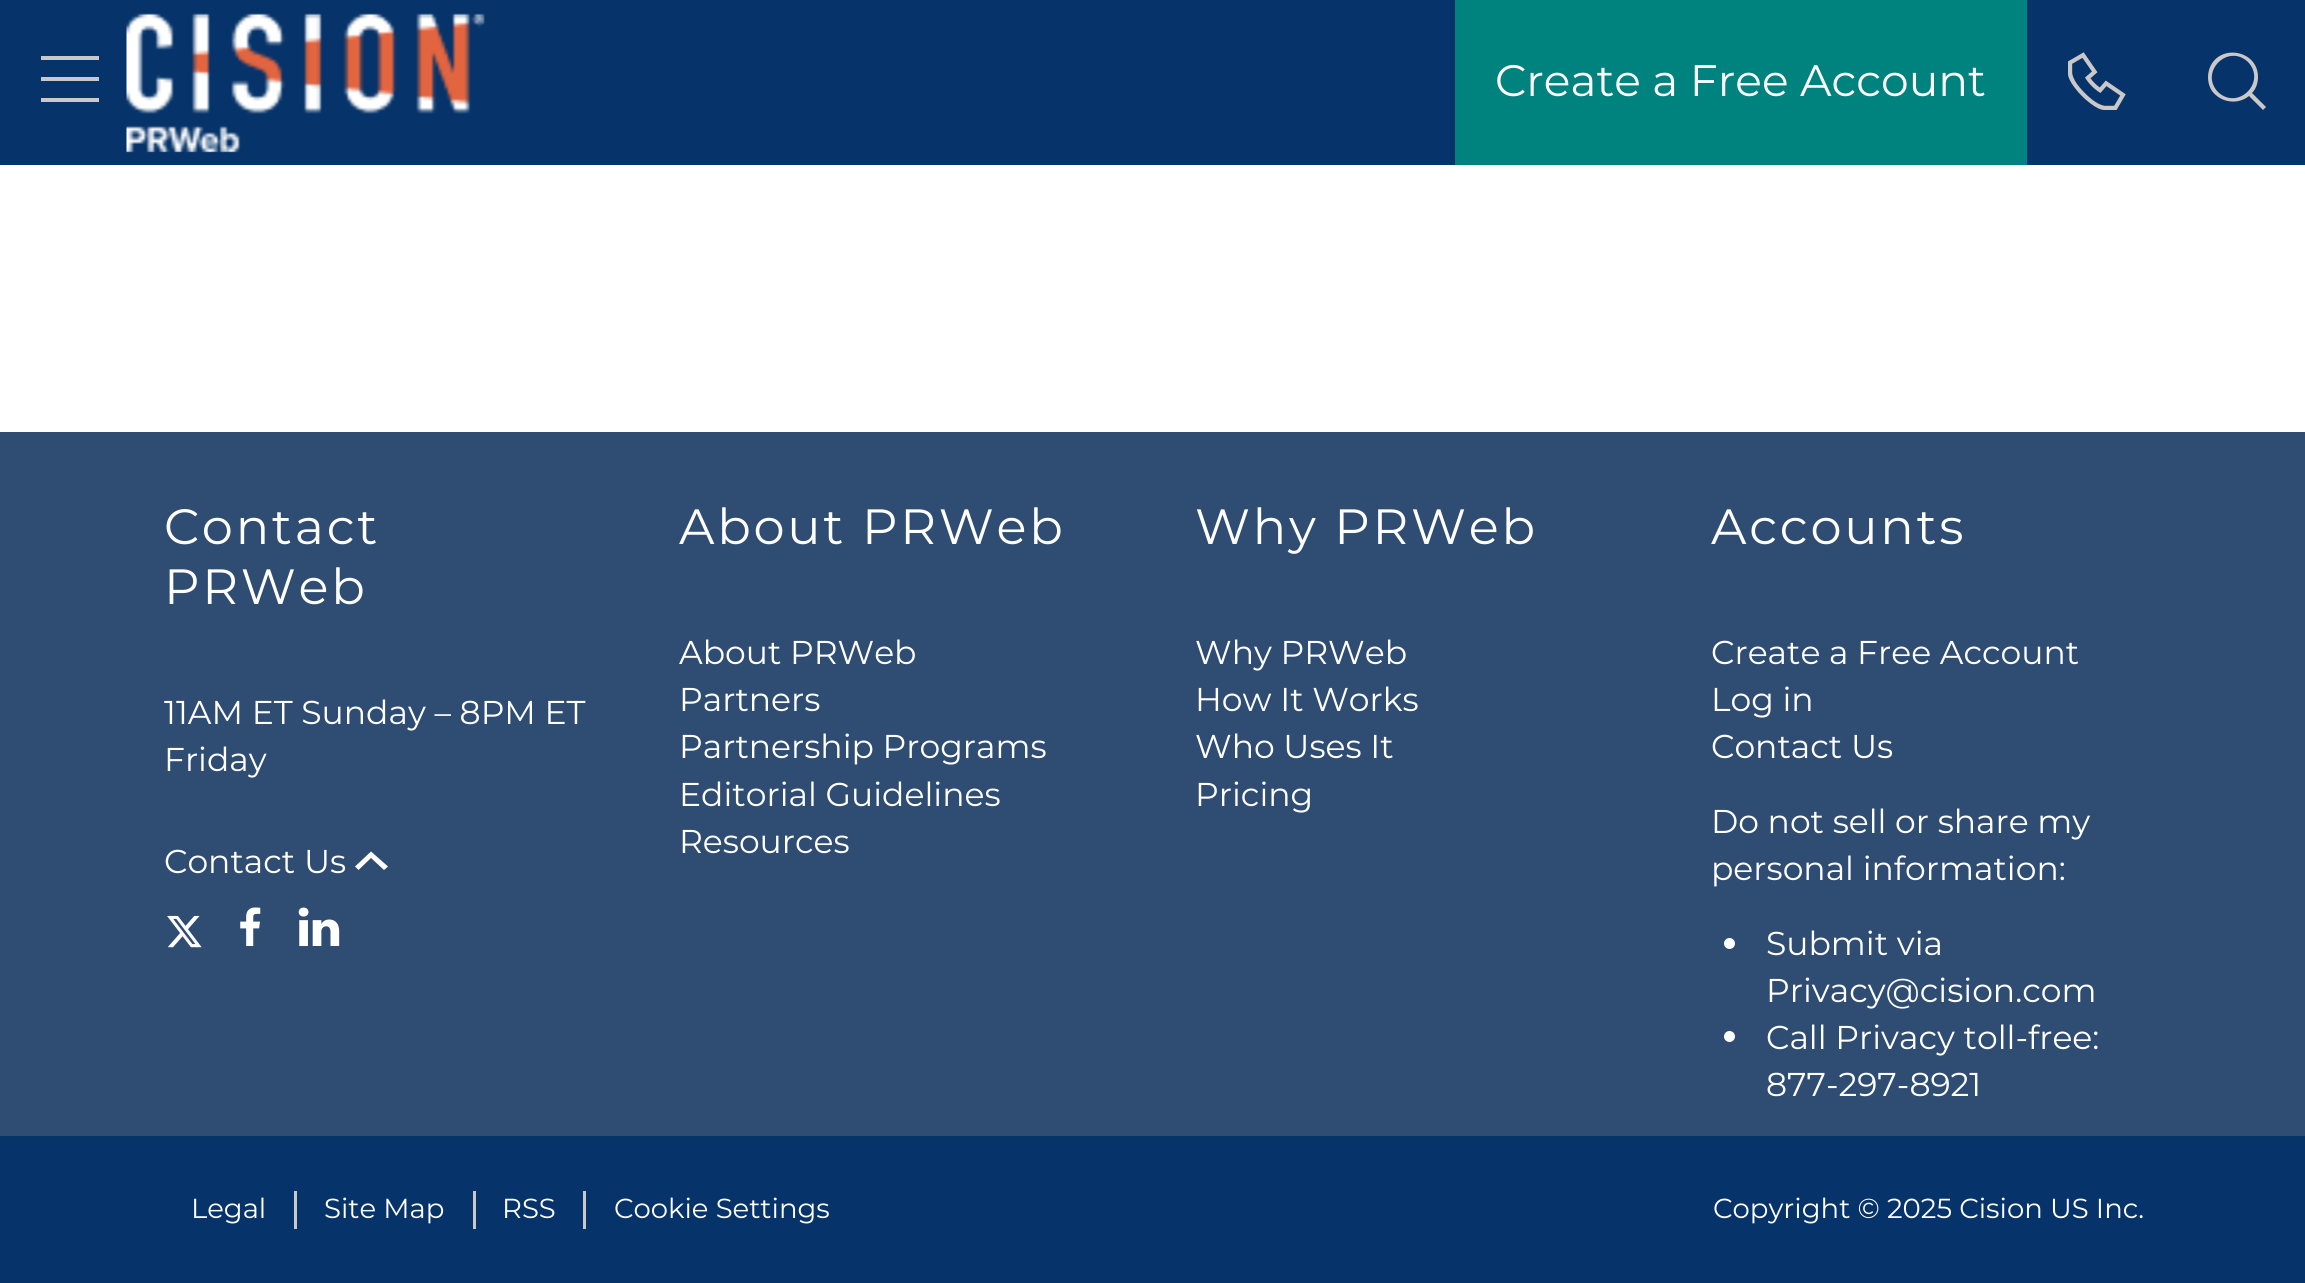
#include <cairo/cairo.h>
#include <math.h>
#include <stddef.h>

static cairo_t *cr;

static void use_color(int r, int g, int b) {
  cairo_set_source_rgb(cr, r / 255.0, g / 255.0, b / 255.0);
}

static void text(double x, double y, const char *s, const char *family, double size, int italic, int bold, int r, int g, int b) {
  cairo_select_font_face(cr, family, italic ? CAIRO_FONT_SLANT_ITALIC : CAIRO_FONT_SLANT_NORMAL,
    bold ? CAIRO_FONT_WEIGHT_BOLD : CAIRO_FONT_WEIGHT_NORMAL);
  cairo_set_font_size(cr, size);
  use_color(r, g, b);
  cairo_move_to(cr, x, y);
  cairo_show_text(cr, s);
}

static void spaced_text(double x, double y, const char *s, double letter, double word) {
  cairo_move_to(cr, x, y);
  while (*s) {
    char ch[5] = {0};
    int n = 0;
    do ch[n++] = *s++; while ((*s & 0xC0) == 0x80);
    cairo_show_text(cr, ch);
    cairo_rel_move_to(cr, letter + word * (*ch == ' '), 0);
  }
}

static void box(double x, double y, double w, double h, int r, int g, int b) {
  use_color(r, g, b);
  cairo_rectangle(cr, x, y, w, h);
  cairo_fill(cr);
}

static void picture(const char *path, double x, double y, double w, double h) {
  cairo_surface_t *image = cairo_image_surface_create_from_png(path);
  cairo_save(cr);
  cairo_set_source_surface(cr, image, x, y);
  cairo_rectangle(cr, x, y, w, h);
  cairo_fill(cr);
  cairo_restore(cr);
  cairo_surface_destroy(image);
}

static void draw(void) {
  use_color(255, 255, 255);
  cairo_paint(cr);
  box(0, 0, 2305, 165, 6, 51, 105);
  use_color(202, 200, 200);
  cairo_new_path(cr);
  cairo_move_to(cr, 99, 77);
  cairo_line_to(cr, 99, 81);
  cairo_line_to(cr, 41, 81);
  cairo_line_to(cr, 41, 77);
  cairo_close_path(cr);
  cairo_move_to(cr, 99, 98);
  cairo_line_to(cr, 99, 102);
  cairo_line_to(cr, 41, 102);
  cairo_line_to(cr, 41, 98);
  cairo_close_path(cr);
  cairo_move_to(cr, 99, 56);
  cairo_line_to(cr, 99, 60);
  cairo_line_to(cr, 41, 60);
  cairo_line_to(cr, 41, 56);
  cairo_close_path(cr);
  cairo_fill(cr);
  picture("img_01.png", 126, 13, 359, 140);
  box(1455, 0, 572, 165, 0, 131, 126);
  picture("img_02.png", 2068, 52, 58, 58);
  use_color(202, 200, 200);
  cairo_new_path(cr);
  cairo_move_to(cr, 2266, 107);
  cairo_line_to(cr, 2263, 110);
  cairo_line_to(cr, 2249, 96);
  cairo_curve_to(cr, 2238, 105, 2221, 103, 2212, 91);
  cairo_curve_to(cr, 2208, 85, 2207, 77, 2209, 70);
  cairo_curve_to(cr, 2217, 43, 2258, 49, 2258, 77);
  cairo_curve_to(cr, 2258, 83, 2256, 89, 2252, 93);
  cairo_close_path(cr);
  cairo_move_to(cr, 2218, 92);
  cairo_curve_to(cr, 2238, 111, 2267, 82, 2248, 62);
  cairo_curve_to(cr, 2228, 43, 2199, 72, 2218, 92);
  cairo_close_path(cr);
  cairo_fill(cr);
  box(0, 432, 2305, 704, 47, 76, 114);
  use_color(255, 255, 255);
  cairo_new_path(cr);
  cairo_move_to(cr, 371, 851.5);
  cairo_line_to(cr, 388, 866.5);
  cairo_line_to(cr, 384, 870);
  cairo_line_to(cr, 371, 858);
  cairo_line_to(cr, 358.5, 870);
  cairo_line_to(cr, 355, 866.5);
  cairo_close_path(cr);
  cairo_fill(cr);
  picture("img_03.png", 167, 915, 35, 33);
  picture("img_04.png", 240, 907, 21, 39);
  picture("img_05.png", 298, 907, 42, 39);
  cairo_arc(cr, 1729.5, 943.5, 5.5, 0, 2 * M_PI);
  cairo_fill(cr);
  cairo_arc(cr, 1729.5, 1036.5, 5.5, 0, 2 * M_PI);
  cairo_fill(cr);
  box(0, 1136, 2305, 147, 6, 51, 105);
  box(294, 1191, 3, 38, 202, 200, 200);
  box(473, 1191, 3, 38, 202, 200, 200);
  box(583, 1191, 3, 38, 202, 200, 200);
  text(1495, 96, "Create a Free Account", "Montserrat", 44, 0, 0, 255, 255, 255);
  cairo_set_font_size(cr, 49.5);
  spaced_text(164, 544, "Contact", 2.75, 0);
  spaced_text(164, 604, "PRWeb", 2.75, 0);
  text(164, 724, "11AM ET Sunday – 8PM ET", "Montserrat", 33, 0, 0, 255, 255, 255);
  text(164, 771, "Friday", "Montserrat", 33, 0, 0, 255, 255, 255);
  text(164, 873, "Contact Us", "Montserrat", 33, 0, 0, 255, 255, 255);
  cairo_set_font_size(cr, 49.5);
  spaced_text(679, 544, "About PRWeb", 2.75, 0);
  text(679, 664, "About PRWeb", "Montserrat", 33, 0, 0, 255, 255, 255);
  text(679, 711, "Partners", "Montserrat", 33, 0, 0, 255, 255, 255);
  text(679, 758, "Partnership Programs", "Montserrat", 33, 0, 0, 255, 255, 255);
  text(679, 806, "Editorial Guidelines", "Montserrat", 33, 0, 0, 255, 255, 255);
  text(679, 853, "Resources", "Montserrat", 33, 0, 0, 255, 255, 255);
  cairo_set_font_size(cr, 49.5);
  spaced_text(1195, 544, "Why PRWeb", 2.75, 0);
  text(1195, 664, "Why PRWeb", "Montserrat", 33, 0, 0, 255, 255, 255);
  text(1195, 711, "How It Works", "Montserrat", 33, 0, 0, 255, 255, 255);
  text(1195, 758, "Who Uses It", "Montserrat", 33, 0, 0, 255, 255, 255);
  text(1195, 806, "Pricing", "Montserrat", 33, 0, 0, 255, 255, 255);
  cairo_set_font_size(cr, 49.5);
  spaced_text(1711, 544, "Accounts", 2.75, 0);
  text(1711, 664, "Create a Free Account", "Montserrat", 33, 0, 0, 255, 255, 255);
  text(1711, 711, "Log in", "Montserrat", 33, 0, 0, 255, 255, 255);
  text(1711, 758, "Contact Us", "Montserrat", 33, 0, 0, 255, 255, 255);
  text(1711, 833, "Do not sell or share my", "Montserrat", 33, 0, 0, 255, 255, 255);
  text(1711, 880, "personal information:", "Montserrat", 33, 0, 0, 255, 255, 255);
  text(1766, 955, "Submit via", "Montserrat", 33, 0, 0, 255, 255, 255);
  text(1766, 1002, "Privacy@cision.com", "Montserrat", 33, 0, 0, 255, 255, 255);
  text(1766, 1049, "Call Privacy toll-free:", "Montserrat", 33, 0, 0, 255, 255, 255);
  text(1766, 1096, "877-297-8921", "Montserrat", 33, 0, 0, 255, 255, 255);
  text(191, 1218, "Legal", "Montserrat", 27.5, 0, 0, 255, 255, 255);
  text(324, 1218, "Site Map", "Montserrat", 27.5, 0, 0, 255, 255, 255);
  text(502, 1218, "RSS", "Montserrat", 27.5, 0, 0, 255, 255, 255);
  text(614, 1218, "Cookie Settings", "Montserrat", 27.5, 0, 0, 255, 255, 255);
  text(1713, 1218, "Copyright © 2025 Cision US Inc.", "Montserrat", 27.5, 0, 0, 255, 255, 255);
}

int main(void) {
  cairo_surface_t *surface = cairo_image_surface_create(CAIRO_FORMAT_RGB24, 2305, 1283);
  cr = cairo_create(surface);
  cairo_font_options_t *options = cairo_font_options_create();
  cairo_font_options_set_hint_metrics(options, CAIRO_HINT_METRICS_OFF);
  cairo_font_options_set_hint_style(options, CAIRO_HINT_STYLE_NONE);
  cairo_set_font_options(cr, options);
  cairo_set_miter_limit(cr, 4);
  draw();
  cairo_surface_write_to_png(surface, "out.png");
  cairo_font_options_destroy(options);
  cairo_destroy(cr);
  cairo_surface_destroy(surface);
  return 0;
}
